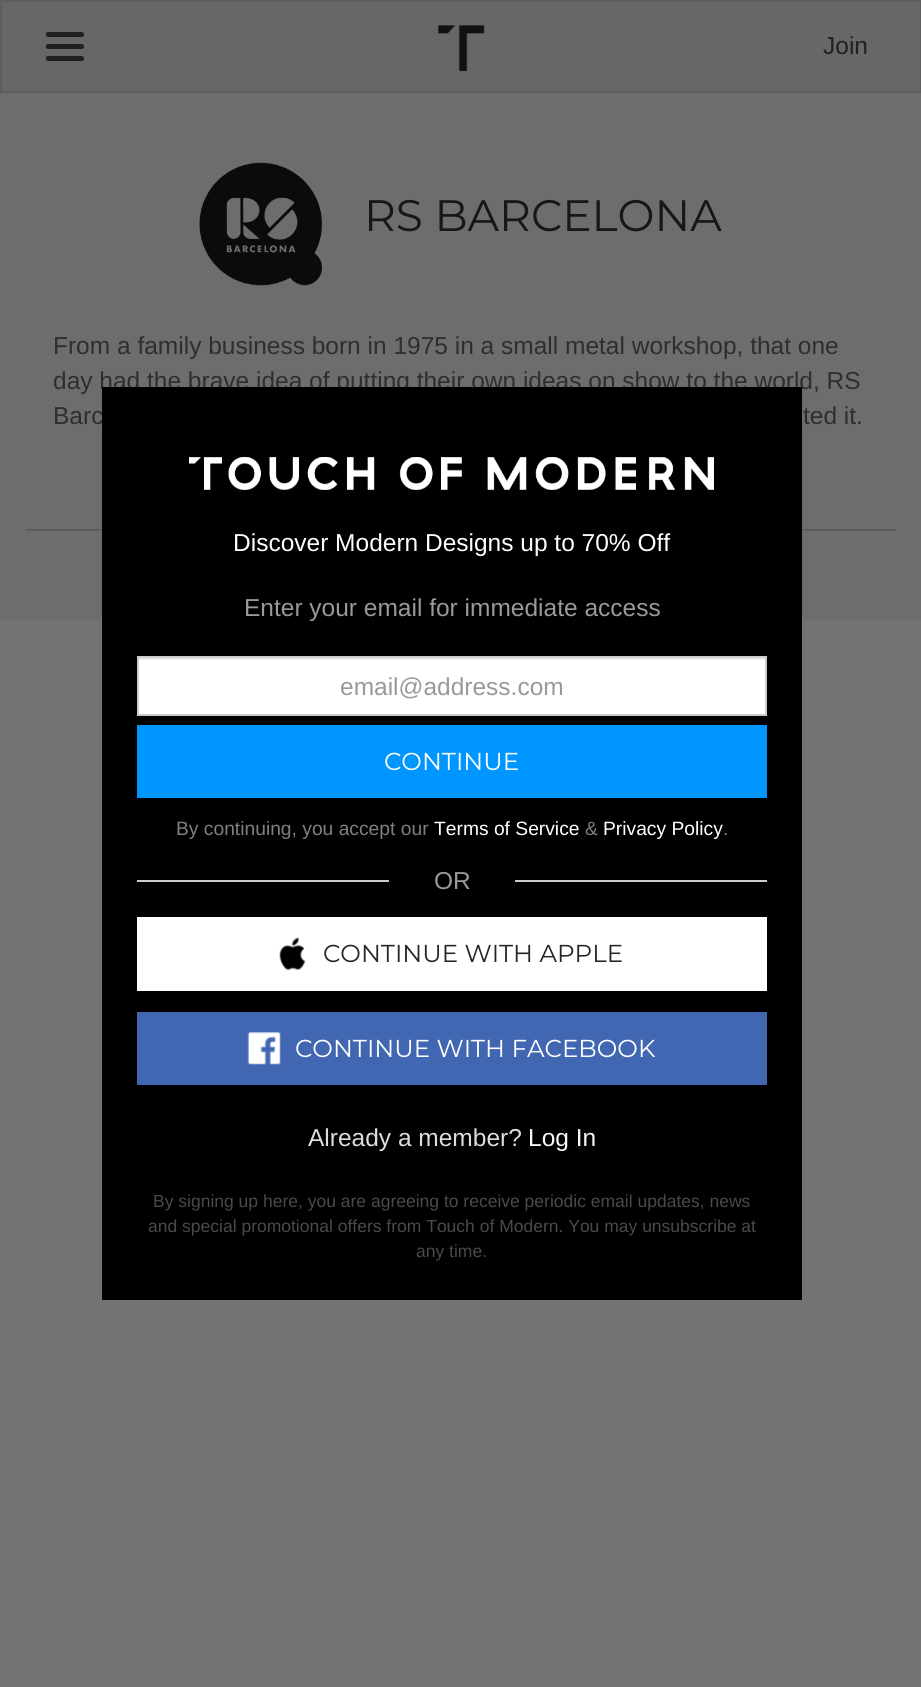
#include <cairo/cairo.h>
#include <math.h>
#include <stddef.h>

static cairo_t *cr;

static void use_color(int r, int g, int b) {
  cairo_set_source_rgb(cr, r / 255.0, g / 255.0, b / 255.0);
}

static void text(double x, double y, const char *s, const char *family, double size, int italic, int bold, int r, int g, int b) {
  cairo_select_font_face(cr, family, italic ? CAIRO_FONT_SLANT_ITALIC : CAIRO_FONT_SLANT_NORMAL,
    bold ? CAIRO_FONT_WEIGHT_BOLD : CAIRO_FONT_WEIGHT_NORMAL);
  cairo_set_font_size(cr, size);
  use_color(r, g, b);
  cairo_move_to(cr, x, y);
  cairo_show_text(cr, s);
}

static void box(double x, double y, double w, double h, int r, int g, int b) {
  use_color(r, g, b);
  cairo_rectangle(cr, x, y, w, h);
  cairo_fill(cr);
}

static void round_rect(double x, double y, double w, double h, double r) {
  cairo_new_sub_path(cr);
  cairo_arc(cr, x + w - r, y + h - r, r, 0, M_PI / 2);
  cairo_arc(cr, x + r, y + h - r, r, M_PI / 2, M_PI);
  cairo_arc(cr, x + r, y + r, r, M_PI, 1.5 * M_PI);
  cairo_arc(cr, x + w - r, y + r, r, 1.5 * M_PI, 2 * M_PI);
  cairo_close_path(cr);
}

static void picture(const char *path, double x, double y, double w, double h) {
  cairo_surface_t *image = cairo_image_surface_create_from_png(path);
  cairo_save(cr);
  cairo_set_source_surface(cr, image, x, y);
  cairo_rectangle(cr, x, y, w, h);
  cairo_fill(cr);
  cairo_restore(cr);
  cairo_surface_destroy(image);
}

static void draw(void) {
  use_color(115, 115, 115);
  cairo_paint(cr);
  use_color(103, 103, 103);
  cairo_rectangle(cr, 1, 1, 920, 91);
  cairo_fill_preserve(cr);
  use_color(94, 94, 94);
  cairo_stroke(cr);
  use_color(33, 33, 34);
  round_rect(46, 32, 38, 5, 2);
  cairo_fill(cr);
  round_rect(46, 44, 38, 5, 2);
  cairo_fill(cr);
  round_rect(46, 56, 38, 5, 2);
  cairo_fill(cr);
  picture("img_01.png", 437, 25, 48, 46);
  box(0, 93, 921, 527, 109, 109, 109);
  picture("img_02.png", 199, 162, 123, 124);
  box(26, 529, 870, 2, 92, 92, 92);
  text(823, 54, "Join", "Liberation Sans", 24.5, 0, 0, 33, 33, 34);
  text(364, 231, "RS BARCELONA", "Montserrat", 44, 0, 0, 23, 23, 23);
  text(53, 354, "From a family business born in 1975 in a small metal workshop, that one", "Liberation Sans", 24.5, 0, 0, 46, 46, 46);
  text(53, 389, "day had the brave idea of putting their own ideas on show to the world, RS", "Liberation Sans", 24.5, 0, 0, 46, 46, 46);
  text(53, 424, "Barc", "Liberation Sans", 24.5, 0, 0, 46, 46, 46);
  text(803, 424, "ted it.", "Liberation Sans", 24.5, 0, 0, 46, 46, 46);
  box(102, 387, 700, 913, 0, 0, 0);
  picture("img_03.png", 189, 457, 525, 33);
  text(233, 551, "Discover Modern Designs up to 70% Off", "Liberation Sans", 24.5, 0, 0, 255, 255, 255);
  text(244, 616, "Enter your email for immediate access", "Liberation Sans", 24.5, 0, 0, 153, 153, 153);
  box(139, 660, 626, 54, 255, 255, 255);
  box(138, 658, 627, 2, 236, 236, 236);
  cairo_rectangle(cr, 138, 657, 628, 58);
  use_color(204, 204, 204);
  cairo_stroke(cr);
  text(340, 695, "email@address.com", "Liberation Sans", 24.5, 0, 0, 153, 153, 153);
  box(137, 725, 630, 73, 0, 150, 255);
  text(384, 770, "CONTINUE", "Montserrat", 24.5, 0, 0, 255, 255, 255);
  text(176, 835, "By continuing, you accept our", "Liberation Sans", 19.25, 0, 0, 127, 127, 127);
  text(434, 835, "Terms of Service", "Liberation Sans", 19.25, 0, 0, 255, 255, 255);
  text(585, 835, "&", "Liberation Sans", 19.25, 0, 0, 127, 127, 127);
  text(603, 835, "Privacy Policy", "Liberation Sans", 19.25, 0, 0, 255, 255, 255);
  text(723, 835, ".", "Liberation Sans", 19.25, 0, 0, 127, 127, 127);
  box(137, 880, 252, 2, 204, 204, 204);
  text(434, 889, "OR", "Liberation Sans", 24.5, 0, 0, 153, 153, 153);
  box(515, 880, 252, 2, 204, 204, 204);
  box(137, 917, 630, 74, 255, 255, 255);
  picture("img_04.png", 279, 937, 27, 34);
  text(323, 962, "CONTINUE WITH APPLE", "Montserrat", 24.5, 0, 0, 37, 37, 40);
  box(137, 1012, 630, 73, 66, 103, 178);
  picture("img_05.png", 247, 1032, 34, 33);
  text(295, 1057, "CONTINUE WITH FACEBOOK", "Montserrat", 24.5, 0, 0, 255, 255, 255);
  text(308, 1146, "Already a member?", "Liberation Sans", 24.5, 0, 0, 221, 221, 221);
  text(528, 1146, "Log In", "Liberation Sans", 24.5, 0, 0, 248, 248, 248);
  text(153, 1207, "By signing up here, you are agreeing to receive periodic email updates, news", "Liberation Sans", 17.5, 0, 0, 74, 73, 75);
  text(148, 1232, "and special promotional offers from Touch of Modern. You may unsubscribe at", "Liberation Sans", 17.5, 0, 0, 74, 73, 75);
  text(416, 1257, "any time.", "Liberation Sans", 17.5, 0, 0, 74, 73, 75);
}

int main(void) {
  cairo_surface_t *surface = cairo_image_surface_create(CAIRO_FORMAT_RGB24, 921, 1687);
  cr = cairo_create(surface);
  cairo_font_options_t *options = cairo_font_options_create();
  cairo_font_options_set_hint_metrics(options, CAIRO_HINT_METRICS_OFF);
  cairo_font_options_set_hint_style(options, CAIRO_HINT_STYLE_NONE);
  cairo_set_font_options(cr, options);
  cairo_set_miter_limit(cr, 4);
  draw();
  cairo_surface_write_to_png(surface, "out.png");
  cairo_font_options_destroy(options);
  cairo_destroy(cr);
  cairo_surface_destroy(surface);
  return 0;
}
